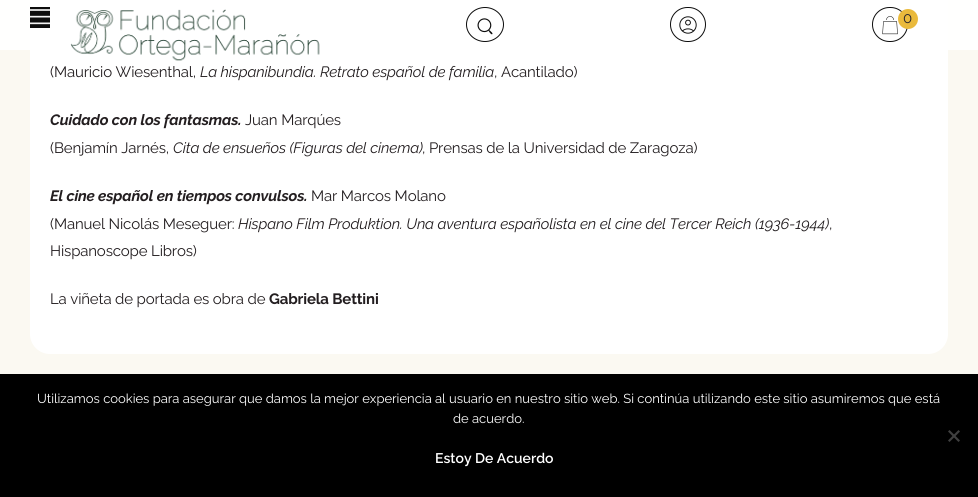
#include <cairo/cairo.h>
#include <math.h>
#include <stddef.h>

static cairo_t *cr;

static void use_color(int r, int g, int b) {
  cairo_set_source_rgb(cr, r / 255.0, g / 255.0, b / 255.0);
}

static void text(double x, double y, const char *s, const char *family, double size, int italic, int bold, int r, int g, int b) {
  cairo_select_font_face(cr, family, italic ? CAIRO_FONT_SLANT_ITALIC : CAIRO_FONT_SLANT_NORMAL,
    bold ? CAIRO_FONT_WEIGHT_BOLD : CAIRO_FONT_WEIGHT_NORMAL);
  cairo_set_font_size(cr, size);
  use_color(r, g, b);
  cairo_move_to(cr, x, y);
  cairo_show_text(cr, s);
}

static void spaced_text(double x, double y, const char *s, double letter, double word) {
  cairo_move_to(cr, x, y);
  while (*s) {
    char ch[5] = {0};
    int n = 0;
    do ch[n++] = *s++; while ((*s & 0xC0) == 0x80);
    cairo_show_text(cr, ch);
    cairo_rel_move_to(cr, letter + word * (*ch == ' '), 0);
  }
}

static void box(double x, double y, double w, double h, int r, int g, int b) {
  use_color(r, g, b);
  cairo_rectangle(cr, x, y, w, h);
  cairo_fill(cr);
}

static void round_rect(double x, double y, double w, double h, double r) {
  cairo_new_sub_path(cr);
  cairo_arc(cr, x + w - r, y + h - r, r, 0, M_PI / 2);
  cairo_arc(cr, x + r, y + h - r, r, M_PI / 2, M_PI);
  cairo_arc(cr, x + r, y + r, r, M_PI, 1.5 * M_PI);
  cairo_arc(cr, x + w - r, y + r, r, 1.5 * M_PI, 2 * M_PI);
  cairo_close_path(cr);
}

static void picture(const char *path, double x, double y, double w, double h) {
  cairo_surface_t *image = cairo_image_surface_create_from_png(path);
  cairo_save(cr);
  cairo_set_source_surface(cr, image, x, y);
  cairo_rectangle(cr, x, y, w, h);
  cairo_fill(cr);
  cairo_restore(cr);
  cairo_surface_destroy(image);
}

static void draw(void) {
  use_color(251, 249, 242);
  cairo_paint(cr);
  use_color(255, 255, 255);
  round_rect(30, -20, 918, 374, 20);
  cairo_fill(cr);
  cairo_set_source_rgba(cr, 1, 1, 1, 0.95);
  cairo_rectangle(cr, 0, 0, 978, 50);
  cairo_fill(cr);
  box(30, 7, 20, 21, 13, 13, 13);
  picture("img_01.png", 30, 9, 20, 16);
  picture("img_02.png", 70, 9, 250, 52);
  cairo_new_path(cr);
  cairo_move_to(cr, 485, 7.5);
  cairo_curve_to(cr, 495, 7.5, 503.5, 15, 503.5, 24.5);
  cairo_curve_to(cr, 503.5, 34, 495, 41.5, 485, 41.5);
  cairo_curve_to(cr, 475, 41.5, 466.5, 34, 466.5, 24.5);
  cairo_curve_to(cr, 466.5, 15, 475, 7.5, 485, 7.5);
  cairo_close_path(cr);
  cairo_set_source_rgba(cr, 0, 0, 0, 0.95);
  cairo_set_line_width(cr, 1);
  cairo_stroke(cr);
  picture("img_03.png", 477, 18, 16, 17);
  round_rect(670.5, 7.5, 35, 34, 17);
  use_color(13, 13, 13);
  cairo_stroke(cr);
  picture("img_04.png", 679, 16, 18, 18);
  round_rect(872.5, 7.5, 35, 34, 17);
  cairo_stroke(cr);
  picture("img_05.png", 882, 16, 16, 19);
  use_color(234, 186, 60);
  cairo_arc(cr, 908, 19, 10, 0, 2 * M_PI);
  cairo_fill(cr);
  box(0, 374, 978, 123, 0, 0, 0);
  use_color(64, 64, 64);
  cairo_new_path(cr);
  cairo_move_to(cr, 958.5, 430);
  cairo_line_to(cr, 960, 431.5);
  cairo_line_to(cr, 949.5, 442);
  cairo_line_to(cr, 948, 440.5);
  cairo_close_path(cr);
  cairo_fill(cr);
  cairo_new_path(cr);
  cairo_move_to(cr, 948, 431.5);
  cairo_line_to(cr, 949.5, 430);
  cairo_line_to(cr, 960, 440.5);
  cairo_line_to(cr, 958.5, 442);
  cairo_close_path(cr);
  cairo_fill(cr);
  cairo_select_font_face(cr, "Raleway", CAIRO_FONT_SLANT_NORMAL, CAIRO_FONT_WEIGHT_NORMAL);
  cairo_set_font_size(cr, 15);
  use_color(46, 41, 43);
  spaced_text(903, 23, "0", -0.15, 0);
  use_color(35, 30, 32);
  spaced_text(50, 77, "(Mauricio Wiesenthal,", -0.15, 0);
  cairo_select_font_face(cr, "Raleway", CAIRO_FONT_SLANT_ITALIC, CAIRO_FONT_WEIGHT_NORMAL);
  spaced_text(200, 77, "La hispanibundia. Retrato español de familia", -0.15, 0);
  cairo_select_font_face(cr, "Raleway", CAIRO_FONT_SLANT_NORMAL, CAIRO_FONT_WEIGHT_NORMAL);
  spaced_text(494, 77, ", Acantilado)", -0.15, 0);
  cairo_select_font_face(cr, "Raleway", CAIRO_FONT_SLANT_ITALIC, CAIRO_FONT_WEIGHT_BOLD);
  spaced_text(50, 125, "Cuidado con los fantasmas.", -0.15, 0);
  cairo_select_font_face(cr, "Raleway", CAIRO_FONT_SLANT_NORMAL, CAIRO_FONT_WEIGHT_NORMAL);
  spaced_text(245, 125, "Juan Marqúes", -0.15, 0);
  spaced_text(50, 153, "(Benjamín Jarnés,", -0.15, 0);
  cairo_select_font_face(cr, "Raleway", CAIRO_FONT_SLANT_ITALIC, CAIRO_FONT_WEIGHT_NORMAL);
  spaced_text(173, 153, "Cita de ensueños (Figuras del cinema)", -0.15, 0);
  cairo_select_font_face(cr, "Raleway", CAIRO_FONT_SLANT_NORMAL, CAIRO_FONT_WEIGHT_NORMAL);
  spaced_text(422, 153, ", Prensas de la Universidad de Zaragoza)", -0.15, 0);
  cairo_select_font_face(cr, "Raleway", CAIRO_FONT_SLANT_ITALIC, CAIRO_FONT_WEIGHT_BOLD);
  spaced_text(50, 201, "El cine español en tiempos convulsos.", -0.15, 0);
  cairo_select_font_face(cr, "Raleway", CAIRO_FONT_SLANT_NORMAL, CAIRO_FONT_WEIGHT_NORMAL);
  spaced_text(311, 201, "Mar Marcos Molano", -0.15, 0);
  spaced_text(50, 229, "(Manuel Nicolás Meseguer:", -0.15, 0);
  cairo_select_font_face(cr, "Raleway", CAIRO_FONT_SLANT_ITALIC, CAIRO_FONT_WEIGHT_NORMAL);
  spaced_text(238, 229, "Hispano Film Produktion. Una aventura españolista en el cine del Tercer Reich (1936-1944)", -0.15, 0);
  cairo_select_font_face(cr, "Raleway", CAIRO_FONT_SLANT_NORMAL, CAIRO_FONT_WEIGHT_NORMAL);
  spaced_text(829, 229, ",", -0.15, 0);
  spaced_text(50, 256, "Hispanoscope Libros)", -0.15, 0);
  spaced_text(50, 304, "La viñeta de portada es obra de", -0.15, 0);
  cairo_select_font_face(cr, "Raleway", CAIRO_FONT_SLANT_NORMAL, CAIRO_FONT_WEIGHT_BOLD);
  spaced_text(269, 304, "Gabriela Bettini", -0.15, 0);
  text(37, 403, "Utilizamos cookies para asegurar que damos la mejor experiencia al usuario en nuestro sitio web. Si continúa utilizando este sitio asumiremos que está", "Raleway", 13, 0, 0, 255, 255, 255);
  text(453, 423, "de acuerdo.", "Raleway", 13, 0, 0, 255, 255, 255);
  text(435, 463, "Estoy De Acuerdo", "Raleway SemiBold", 14, 0, 0, 255, 255, 255);
}

int main(void) {
  cairo_surface_t *surface = cairo_image_surface_create(CAIRO_FORMAT_RGB24, 978, 497);
  cr = cairo_create(surface);
  cairo_font_options_t *options = cairo_font_options_create();
  cairo_font_options_set_hint_metrics(options, CAIRO_HINT_METRICS_OFF);
  cairo_font_options_set_hint_style(options, CAIRO_HINT_STYLE_NONE);
  cairo_set_font_options(cr, options);
  cairo_set_miter_limit(cr, 4);
  draw();
  cairo_surface_write_to_png(surface, "out.png");
  cairo_font_options_destroy(options);
  cairo_destroy(cr);
  cairo_surface_destroy(surface);
  return 0;
}
